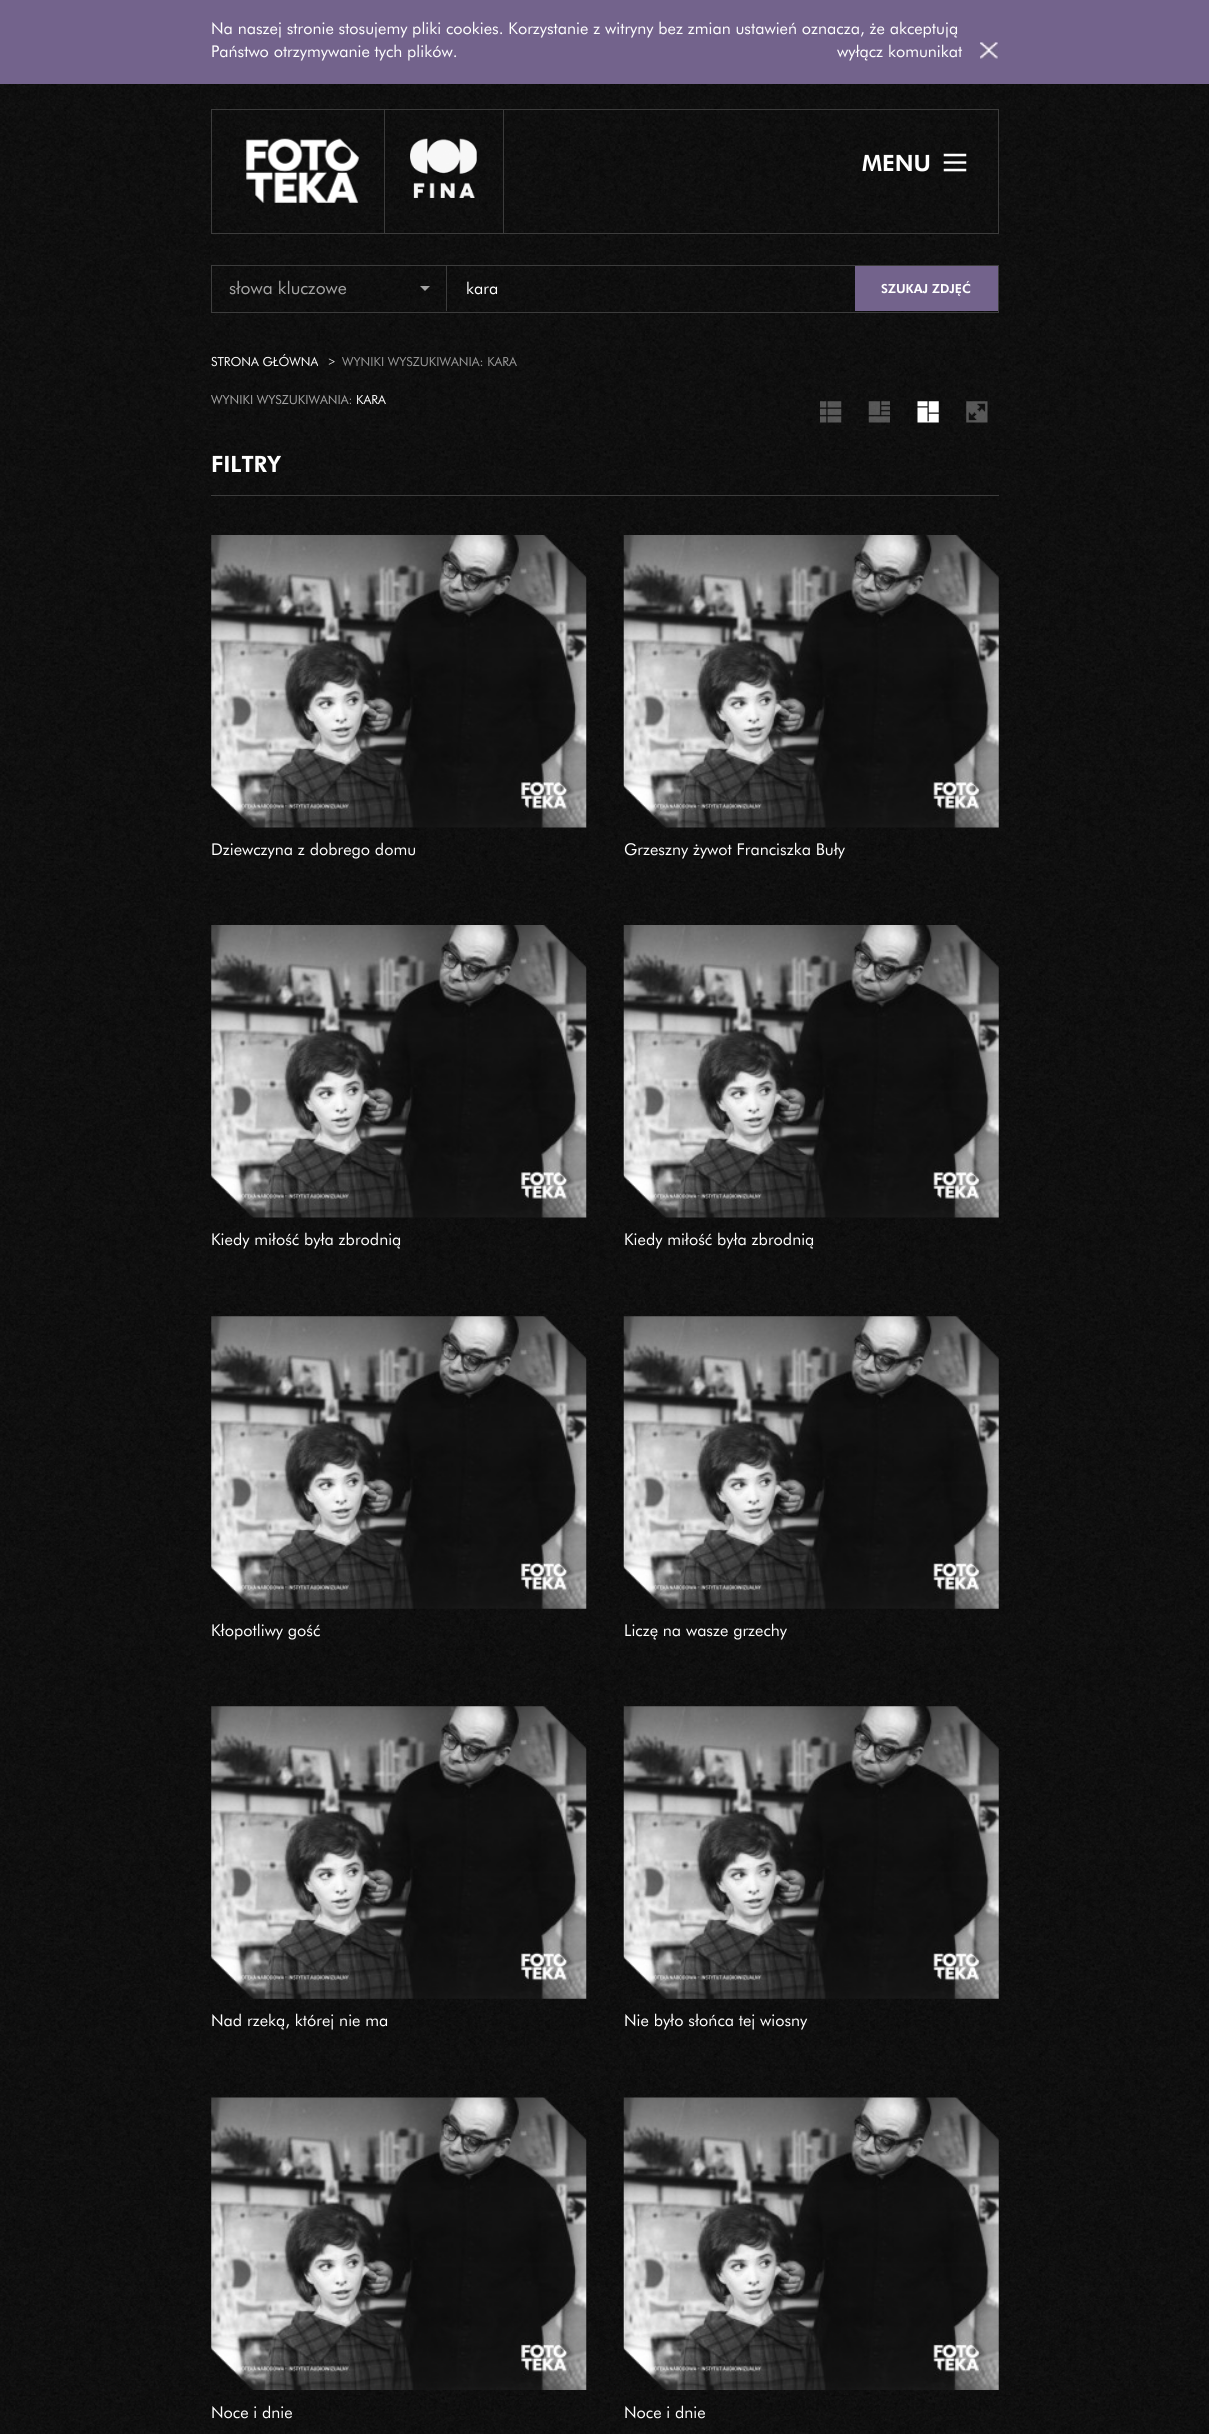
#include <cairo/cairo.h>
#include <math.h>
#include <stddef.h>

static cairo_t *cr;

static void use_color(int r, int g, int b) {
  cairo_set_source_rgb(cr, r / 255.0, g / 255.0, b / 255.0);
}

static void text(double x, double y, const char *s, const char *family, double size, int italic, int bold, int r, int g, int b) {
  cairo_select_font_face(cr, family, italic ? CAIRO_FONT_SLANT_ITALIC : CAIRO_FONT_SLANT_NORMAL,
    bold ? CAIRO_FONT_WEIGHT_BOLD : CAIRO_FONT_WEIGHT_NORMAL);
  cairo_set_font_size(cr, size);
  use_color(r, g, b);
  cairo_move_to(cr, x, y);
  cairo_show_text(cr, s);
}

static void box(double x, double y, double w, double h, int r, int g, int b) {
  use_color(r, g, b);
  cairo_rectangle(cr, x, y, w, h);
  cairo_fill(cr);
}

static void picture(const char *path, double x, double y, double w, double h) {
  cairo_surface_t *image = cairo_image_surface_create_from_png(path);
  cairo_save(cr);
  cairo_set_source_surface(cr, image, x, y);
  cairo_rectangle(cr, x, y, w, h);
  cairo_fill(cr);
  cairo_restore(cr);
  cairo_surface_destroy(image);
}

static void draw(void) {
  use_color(255, 255, 255);
  cairo_paint(cr);
  picture("img_01.png", 0, 84, 1209, 2350);
  box(0, 0, 1209, 84, 115, 99, 140);
  picture("img_02.png", 980, 42, 19, 17);
  cairo_rectangle(cr, 211.5, 109.5, 787, 124);
  use_color(60, 60, 60);
  cairo_set_line_width(cr, 1);
  cairo_stroke(cr);
  box(384, 109, 1, 125, 60, 60, 60);
  picture("img_03.png", 246, 138, 113, 65);
  box(503, 109, 1, 125, 60, 60, 60);
  picture("img_04.png", 410, 138, 67, 60);
  picture("img_05.png", 943, 153, 24, 19);
  cairo_rectangle(cr, 211.5, 265.5, 787, 47);
  cairo_stroke(cr);
  box(446, 266, 1, 45, 60, 60, 60);
  use_color(163, 163, 163);
  cairo_new_path(cr);
  cairo_move_to(cr, 420, 286);
  cairo_line_to(cr, 430, 286);
  cairo_line_to(cr, 425, 291);
  cairo_close_path(cr);
  cairo_fill(cr);
  box(855, 266, 143, 45, 115, 99, 140);
  picture("img_06.png", 820, 401, 22, 22);
  picture("img_07.png", 868, 401, 22, 22);
  picture("img_08.png", 917, 401, 22, 22);
  picture("img_09.png", 966, 401, 22, 22);
  box(211, 495, 788, 1, 60, 60, 60);
  picture("img_11.png", 211, 535, 376, 293);
  picture("img_10.png", 543, 534, 45, 44);
  picture("img_12.png", 210, 785, 43, 44);
  picture("img_14.png", 623, 535, 376, 293);
  picture("img_13.png", 956, 534, 44, 44);
  picture("img_15.png", 623, 785, 43, 44);
  picture("img_17.png", 211, 925, 376, 293);
  picture("img_16.png", 543, 924, 44, 44);
  picture("img_18.png", 210, 1175, 43, 44);
  picture("img_20.png", 623, 925, 376, 293);
  picture("img_19.png", 956, 924, 44, 44);
  picture("img_21.png", 623, 1175, 43, 44);
  picture("img_23.png", 211, 1316, 376, 293);
  picture("img_22.png", 543, 1315, 45, 44);
  picture("img_24.png", 210, 1566, 43, 44);
  picture("img_26.png", 623, 1316, 376, 293);
  picture("img_25.png", 955, 1315, 45, 44);
  picture("img_27.png", 623, 1566, 43, 44);
  picture("img_29.png", 211, 1706, 376, 293);
  picture("img_28.png", 543, 1705, 44, 44);
  picture("img_30.png", 210, 1956, 43, 44);
  picture("img_32.png", 623, 1706, 376, 293);
  picture("img_31.png", 955, 1705, 45, 44);
  picture("img_33.png", 623, 1956, 43, 44);
  picture("img_35.png", 211, 2097, 376, 293);
  picture("img_34.png", 543, 2096, 45, 44);
  picture("img_36.png", 210, 2347, 43, 44);
  picture("img_38.png", 623, 2097, 376, 293);
  picture("img_37.png", 955, 2096, 45, 45);
  picture("img_39.png", 623, 2347, 43, 44);
  text(211, 34, "Na naszej stronie stosujemy pliki cookies. Korzystanie z witryny bez zmian ustawień oznacza, że akceptują", "Futura", 16.25, 0, 0, 255, 255, 255);
  text(211, 57, "Państwo otrzymywanie tych plików.", "Futura", 16.25, 0, 0, 255, 255, 255);
  text(837, 57, "wyłącz komunikat", "Futura", 16.25, 0, 0, 255, 255, 255);
  text(862, 171, "MENU", "Futura Black", 22.5, 0, 0, 255, 255, 255);
  text(229, 294, "słowa kluczowe", "Futura", 17.5, 0, 0, 163, 163, 163);
  text(466, 294, "kara", "Futura", 16.25, 0, 0, 255, 255, 255);
  text(881, 293, "SZUKAJ ZDJĘĆ", "Futura Black", 12.5, 0, 0, 255, 255, 255);
  text(211, 366, "STRONA GŁÓWNA", "Futura", 12.5, 0, 0, 255, 255, 255);
  text(328, 366, ">", "Futura", 12.5, 0, 0, 255, 255, 255);
  text(342, 366, "WYNIKI WYSZUKIWANIA: KARA", "Futura", 12.5, 0, 0, 153, 153, 153);
  text(211, 404, "WYNIKI WYSZUKIWANIA:", "Futura", 12.5, 0, 0, 163, 163, 163);
  text(356, 404, "KARA", "Futura", 12.5, 0, 0, 255, 255, 255);
  text(211, 472, "FILTRY", "Futura Black", 22.5, 0, 0, 255, 255, 255);
  text(211, 855, "Dziewczyna z dobrego domu", "Futura", 16.25, 0, 0, 255, 255, 255);
  text(624, 855, "Grzeszny żywot Franciszka Buły", "Futura", 16.25, 0, 0, 255, 255, 255);
  text(211, 1245, "Kiedy miłość była zbrodnią", "Futura", 16.25, 0, 0, 255, 255, 255);
  text(624, 1245, "Kiedy miłość była zbrodnią", "Futura", 16.25, 0, 0, 255, 255, 255);
  text(211, 1636, "Kłopotliwy gość", "Futura", 16.25, 0, 0, 255, 255, 255);
  text(624, 1636, "Liczę na wasze grzechy", "Futura", 16.25, 0, 0, 255, 255, 255);
  text(211, 2026, "Nad rzeką, której nie ma", "Futura", 16.25, 0, 0, 255, 255, 255);
  text(624, 2026, "Nie było słońca tej wiosny", "Futura", 16.25, 0, 0, 255, 255, 255);
  text(211, 2418, "Noce i dnie", "Futura", 16.25, 0, 0, 255, 255, 255);
  text(624, 2418, "Noce i dnie", "Futura", 16.25, 0, 0, 255, 255, 255);
}

int main(void) {
  cairo_surface_t *surface = cairo_image_surface_create(CAIRO_FORMAT_RGB24, 1209, 2434);
  cr = cairo_create(surface);
  cairo_font_options_t *options = cairo_font_options_create();
  cairo_font_options_set_hint_metrics(options, CAIRO_HINT_METRICS_OFF);
  cairo_font_options_set_hint_style(options, CAIRO_HINT_STYLE_NONE);
  cairo_set_font_options(cr, options);
  cairo_set_miter_limit(cr, 4);
  draw();
  cairo_surface_write_to_png(surface, "out.png");
  cairo_font_options_destroy(options);
  cairo_destroy(cr);
  cairo_surface_destroy(surface);
  return 0;
}
